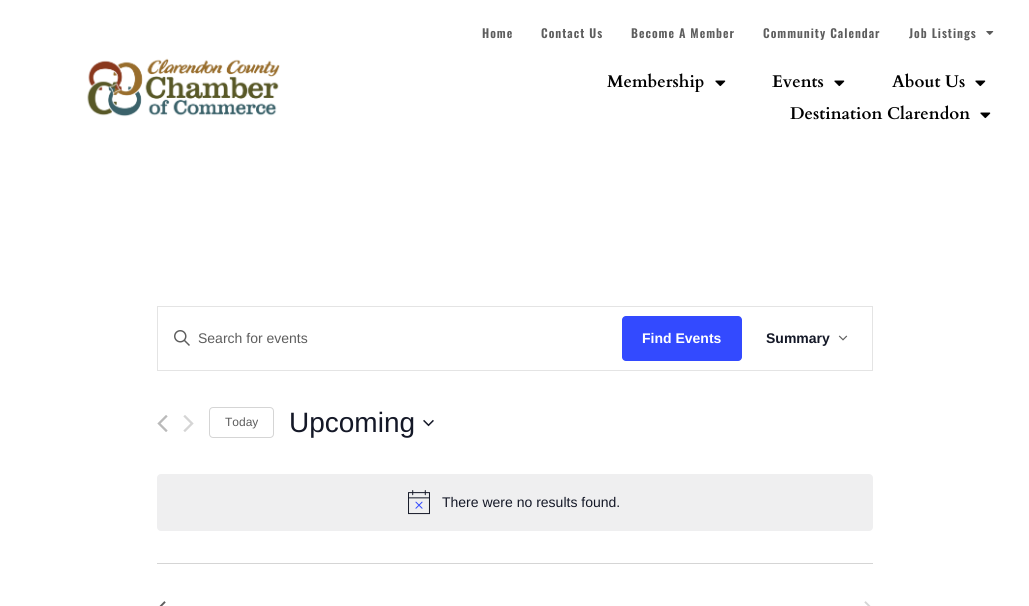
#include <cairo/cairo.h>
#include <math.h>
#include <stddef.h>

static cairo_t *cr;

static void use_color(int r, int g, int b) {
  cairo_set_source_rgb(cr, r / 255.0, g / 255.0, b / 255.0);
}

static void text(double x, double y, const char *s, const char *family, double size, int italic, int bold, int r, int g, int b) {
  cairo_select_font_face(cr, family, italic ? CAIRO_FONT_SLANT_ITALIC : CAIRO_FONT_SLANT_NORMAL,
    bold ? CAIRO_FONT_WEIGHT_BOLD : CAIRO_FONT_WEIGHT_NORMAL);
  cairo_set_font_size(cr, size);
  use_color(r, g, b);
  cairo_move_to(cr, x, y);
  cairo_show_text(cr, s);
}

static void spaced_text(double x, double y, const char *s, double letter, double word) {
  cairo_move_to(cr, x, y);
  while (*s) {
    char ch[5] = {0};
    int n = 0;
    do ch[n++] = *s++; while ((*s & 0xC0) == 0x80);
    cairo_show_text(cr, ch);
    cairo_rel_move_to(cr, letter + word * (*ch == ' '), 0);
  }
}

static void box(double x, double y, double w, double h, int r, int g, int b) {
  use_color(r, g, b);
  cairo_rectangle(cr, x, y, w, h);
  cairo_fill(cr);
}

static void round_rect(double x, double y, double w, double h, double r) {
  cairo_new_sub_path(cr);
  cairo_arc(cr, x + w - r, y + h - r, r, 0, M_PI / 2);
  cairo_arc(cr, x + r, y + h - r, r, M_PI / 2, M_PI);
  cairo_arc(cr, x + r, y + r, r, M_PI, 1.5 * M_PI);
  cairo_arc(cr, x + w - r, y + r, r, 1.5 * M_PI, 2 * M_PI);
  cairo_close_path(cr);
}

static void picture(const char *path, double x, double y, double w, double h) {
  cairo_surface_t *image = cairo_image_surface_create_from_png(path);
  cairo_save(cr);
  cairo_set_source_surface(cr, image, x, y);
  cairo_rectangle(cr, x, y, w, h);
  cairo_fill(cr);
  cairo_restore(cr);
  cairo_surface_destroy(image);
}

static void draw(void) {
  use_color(255, 255, 255);
  cairo_paint(cr);
  picture("img_01.png", 87, 58, 193, 59);
  picture("img_02.png", 986, 31, 8, 4);
  picture("img_03.png", 715, 80, 11, 7);
  picture("img_03.png", 834, 80, 11, 7);
  picture("img_03.png", 975, 80, 11, 7);
  picture("img_03.png", 980, 112, 11, 7);
  cairo_rectangle(cr, 157.5, 306.5, 715, 64);
  use_color(228, 228, 228);
  cairo_set_line_width(cr, 1);
  cairo_stroke(cr);
  picture("img_04.png", 174, 330, 16, 16);
  use_color(51, 74, 255);
  round_rect(622, 316, 120, 45, 4);
  cairo_fill(cr);
  picture("img_05.png", 838, 335, 10, 6);
  picture("img_06.png", 157, 415, 11, 17);
  picture("img_07.png", 183, 415, 11, 17);
  round_rect(209.5, 407.5, 64, 30, 3.5);
  use_color(213, 213, 213);
  cairo_stroke(cr);
  picture("img_08.png", 423, 419, 11, 8);
  use_color(239, 239, 240);
  round_rect(157, 474, 716, 57, 4);
  cairo_fill(cr);
  picture("img_09.png", 408, 490, 22, 25);
  box(157, 563, 716, 1, 213, 213, 213);
  picture("img_10.png", 159, 601, 7, 5);
  picture("img_11.png", 864, 601, 7, 5);
  cairo_select_font_face(cr, "Oswald SemiBold", CAIRO_FONT_SLANT_NORMAL, CAIRO_FONT_WEIGHT_NORMAL);
  cairo_set_font_size(cr, 12);
  use_color(93, 93, 93);
  spaced_text(482, 38, "Home", 1, 0);
  spaced_text(541, 38, "Contact Us", 1, 0);
  spaced_text(631, 38, "Become A Member", 1, 0);
  spaced_text(763, 38, "Community Calendar", 1, 0);
  spaced_text(909, 38, "Job Listings", 1, 0);
  text(607, 87, "Membership", "Cardo", 17, 0, 1, 0, 0, 0);
  text(772, 87, "Events", "Cardo", 17, 0, 1, 0, 0, 0);
  text(892, 87, "About Us", "Cardo", 17, 0, 1, 0, 0, 0);
  text(790, 119, "Destination Clarendon", "Cardo", 17, 0, 1, 0, 0, 0);
  text(198, 343, "Search for events", "Liberation Sans", 14, 0, 0, 93, 93, 93);
  text(642, 343, "Find Events", "Liberation Sans", 14, 0, 1, 255, 255, 255);
  text(766, 343, "Summary", "Liberation Sans", 14, 0, 1, 20, 24, 39);
  text(225, 426, "Today", "Liberation Sans", 12, 0, 0, 93, 93, 93);
  text(289, 432, "Upcoming", "Liberation Sans", 28, 0, 0, 20, 24, 39);
  text(442, 507, "There were no results found.", "Liberation Sans", 14, 0, 0, 20, 24, 39);
}

int main(void) {
  cairo_surface_t *surface = cairo_image_surface_create(CAIRO_FORMAT_RGB24, 1029, 606);
  cr = cairo_create(surface);
  cairo_font_options_t *options = cairo_font_options_create();
  cairo_font_options_set_hint_metrics(options, CAIRO_HINT_METRICS_OFF);
  cairo_font_options_set_hint_style(options, CAIRO_HINT_STYLE_NONE);
  cairo_set_font_options(cr, options);
  cairo_set_miter_limit(cr, 4);
  draw();
  cairo_surface_write_to_png(surface, "out.png");
  cairo_font_options_destroy(options);
  cairo_destroy(cr);
  cairo_surface_destroy(surface);
  return 0;
}
